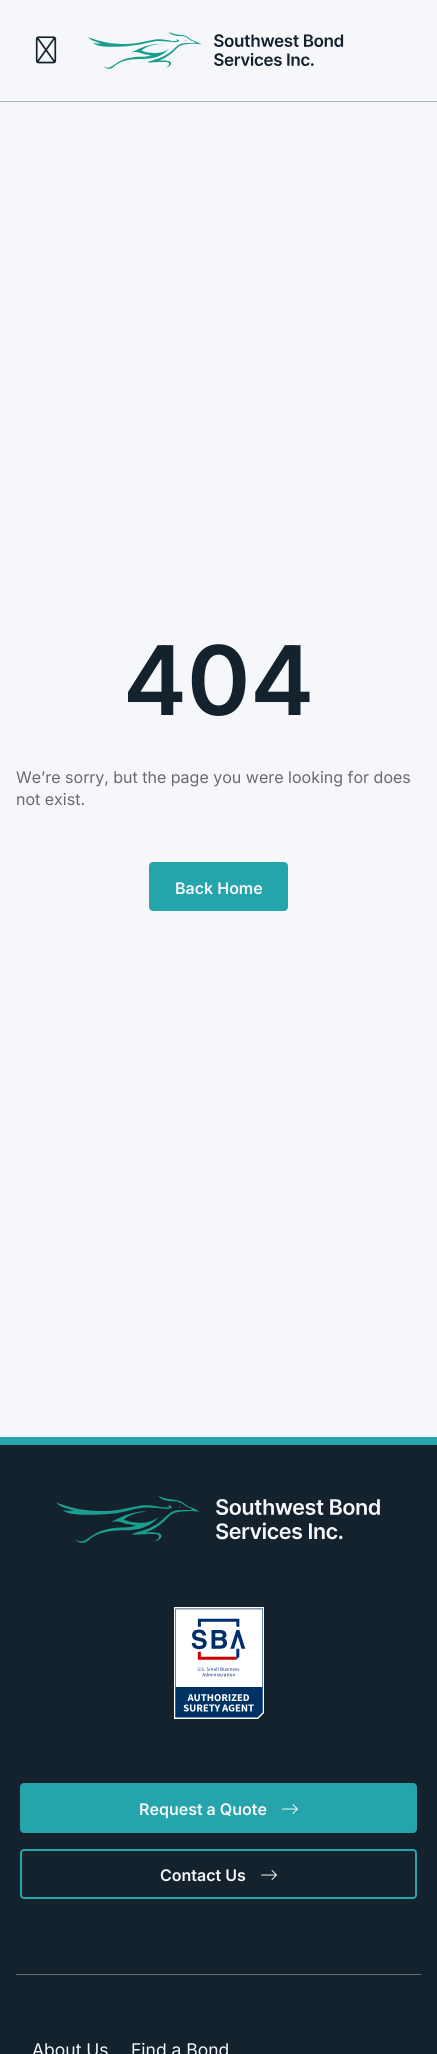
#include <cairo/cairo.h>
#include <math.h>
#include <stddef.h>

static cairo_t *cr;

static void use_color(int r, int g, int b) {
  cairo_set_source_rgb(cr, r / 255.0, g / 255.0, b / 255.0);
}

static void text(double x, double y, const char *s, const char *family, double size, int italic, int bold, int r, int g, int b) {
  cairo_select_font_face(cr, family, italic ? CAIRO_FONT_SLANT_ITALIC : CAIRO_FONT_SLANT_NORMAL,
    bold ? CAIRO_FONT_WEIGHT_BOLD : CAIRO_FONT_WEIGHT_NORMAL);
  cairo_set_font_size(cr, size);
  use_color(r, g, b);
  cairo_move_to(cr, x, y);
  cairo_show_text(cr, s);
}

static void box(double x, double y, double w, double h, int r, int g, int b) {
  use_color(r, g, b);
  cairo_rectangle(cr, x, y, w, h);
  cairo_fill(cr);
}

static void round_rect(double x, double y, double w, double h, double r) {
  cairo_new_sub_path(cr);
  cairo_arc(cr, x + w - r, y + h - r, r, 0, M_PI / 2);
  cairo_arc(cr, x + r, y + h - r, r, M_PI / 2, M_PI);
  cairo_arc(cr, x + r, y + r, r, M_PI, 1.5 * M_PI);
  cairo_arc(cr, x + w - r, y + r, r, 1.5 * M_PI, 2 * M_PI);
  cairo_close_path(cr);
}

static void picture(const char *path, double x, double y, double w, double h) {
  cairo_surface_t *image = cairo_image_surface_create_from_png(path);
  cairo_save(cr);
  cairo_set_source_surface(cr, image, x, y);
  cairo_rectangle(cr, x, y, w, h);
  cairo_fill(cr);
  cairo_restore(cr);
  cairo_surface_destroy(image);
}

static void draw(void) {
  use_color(245, 247, 250);
  cairo_paint(cr);
  box(0, 101, 437, 1, 173, 179, 184);
  picture("img_01.png", 35, 36, 22, 28);
  picture("img_02.png", 88, 32, 256, 37);
  use_color(37, 164, 171);
  round_rect(150, 863, 137, 47, 3);
  cairo_fill_preserve(cr);
  cairo_stroke(cr);
  box(0, 1445, 437, 609, 19, 34, 45);
  box(0, 1437, 437, 8, 37, 164, 171);
  picture("img_03.png", 56, 1496, 324, 47);
  picture("img_04.png", 174, 1607, 90, 112);
  round_rect(21, 1784, 395, 48, 3);
  cairo_fill_preserve(cr);
  cairo_stroke(cr);
  picture("img_05.png", 282, 1804, 16, 10);
  round_rect(21, 1850, 395, 48, 3);
  cairo_stroke(cr);
  picture("img_06.png", 261, 1870, 16, 10);
  box(16, 1974, 405, 1, 102, 111, 119);
  text(123, 715, "404", "Inter SemiBold", 96, 0, 0, 19, 34, 45);
  text(16, 783, "We’re sorry, but the page you were looking for does", "Inter", 16, 0, 0, 106, 106, 106);
  text(16, 805, "not exist.", "Inter", 16, 0, 0, 106, 106, 106);
  text(175, 894, "Back Home", "Inter SemiBold", 16, 0, 0, 245, 247, 250);
  text(139, 1815, "Request a Quote", "Inter SemiBold", 16, 0, 0, 245, 247, 250);
  text(160, 1881, "Contact Us", "Inter SemiBold", 16, 0, 0, 245, 247, 250);
  text(32, 2056, "About Us", "Inter", 17.5, 0, 0, 245, 247, 250);
  text(131, 2056, "Find a Bond", "Inter", 17.5, 0, 0, 245, 247, 250);
}

int main(void) {
  cairo_surface_t *surface = cairo_image_surface_create(CAIRO_FORMAT_RGB24, 437, 2054);
  cr = cairo_create(surface);
  cairo_font_options_t *options = cairo_font_options_create();
  cairo_font_options_set_hint_metrics(options, CAIRO_HINT_METRICS_OFF);
  cairo_font_options_set_hint_style(options, CAIRO_HINT_STYLE_NONE);
  cairo_set_font_options(cr, options);
  cairo_set_miter_limit(cr, 4);
  draw();
  cairo_surface_write_to_png(surface, "out.png");
  cairo_font_options_destroy(options);
  cairo_destroy(cr);
  cairo_surface_destroy(surface);
  return 0;
}
